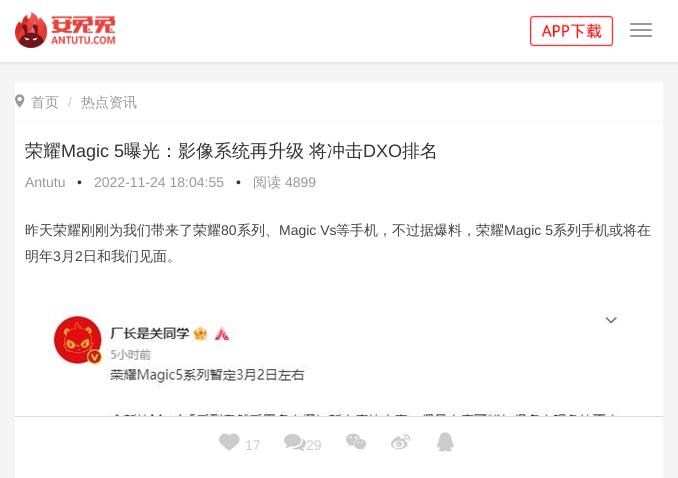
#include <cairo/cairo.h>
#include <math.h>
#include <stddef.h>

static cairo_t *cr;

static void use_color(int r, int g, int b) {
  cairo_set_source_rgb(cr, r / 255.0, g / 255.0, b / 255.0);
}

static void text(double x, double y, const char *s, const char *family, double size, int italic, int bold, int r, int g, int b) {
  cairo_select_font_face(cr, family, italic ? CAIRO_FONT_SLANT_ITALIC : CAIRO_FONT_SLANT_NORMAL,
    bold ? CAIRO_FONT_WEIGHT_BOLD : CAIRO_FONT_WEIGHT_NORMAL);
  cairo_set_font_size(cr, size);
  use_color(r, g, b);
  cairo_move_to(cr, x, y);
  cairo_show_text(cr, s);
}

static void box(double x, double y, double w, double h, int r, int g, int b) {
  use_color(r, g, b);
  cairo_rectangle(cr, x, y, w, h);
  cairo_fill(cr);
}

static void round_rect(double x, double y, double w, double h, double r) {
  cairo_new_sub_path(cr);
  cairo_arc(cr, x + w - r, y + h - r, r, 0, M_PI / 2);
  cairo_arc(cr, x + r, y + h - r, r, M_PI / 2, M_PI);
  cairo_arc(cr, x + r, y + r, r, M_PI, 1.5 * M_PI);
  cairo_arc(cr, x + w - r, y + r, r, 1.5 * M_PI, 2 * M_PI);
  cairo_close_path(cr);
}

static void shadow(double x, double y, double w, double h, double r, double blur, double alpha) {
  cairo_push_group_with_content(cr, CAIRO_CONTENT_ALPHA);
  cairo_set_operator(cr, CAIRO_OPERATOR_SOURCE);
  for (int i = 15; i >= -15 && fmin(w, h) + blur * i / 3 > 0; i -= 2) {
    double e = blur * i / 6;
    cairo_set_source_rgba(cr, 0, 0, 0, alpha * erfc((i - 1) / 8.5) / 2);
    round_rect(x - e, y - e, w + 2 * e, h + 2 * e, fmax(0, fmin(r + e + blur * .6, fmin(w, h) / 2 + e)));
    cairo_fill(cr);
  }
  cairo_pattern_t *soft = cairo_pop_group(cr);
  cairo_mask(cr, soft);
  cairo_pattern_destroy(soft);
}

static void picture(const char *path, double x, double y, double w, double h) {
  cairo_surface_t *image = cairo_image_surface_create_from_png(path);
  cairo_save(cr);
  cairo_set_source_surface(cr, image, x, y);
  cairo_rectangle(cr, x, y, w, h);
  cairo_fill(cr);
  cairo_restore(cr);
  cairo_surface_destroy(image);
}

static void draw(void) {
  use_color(245, 245, 245);
  cairo_paint(cr);
  use_color(0, 0, 0);
  shadow(-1, -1, 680, 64, 0, 1.5, 0.1);
  box(0, 0, 678, 62, 255, 255, 255);
  picture("img_01.png", 15, 12, 100, 36);
  picture("img_02.png", 529, 15, 85, 32);
  use_color(153, 153, 153);
  round_rect(630, 23, 22, 2, 1);
  cairo_fill(cr);
  round_rect(630, 29, 22, 2, 1);
  cairo_fill(cr);
  round_rect(630, 35, 22, 2, 1);
  cairo_fill(cr);
  box(15, 82, 648, 334, 255, 255, 255);
  box(17, 121, 644, 1, 247, 247, 247);
  picture("img_03.png", 15, 94, 10, 14);
  picture("img_04.png", 52, 305, 568, 111);
  box(15, 417, 648, 61, 255, 255, 255);
  box(15, 416, 648, 1, 221, 221, 221);
  picture("img_05.png", 219, 433, 21, 18);
  picture("img_06.png", 284, 433, 22, 19);
  picture("img_07.png", 346, 433, 20, 17);
  picture("img_08.png", 391, 434, 20, 16);
  picture("img_09.png", 437, 432, 17, 20);
  text(31, 107, "首页", "WenQuanYi Zen Hei Medium", 14, 0, 0, 153, 153, 153);
  text(68, 107, "/", "Liberation Sans", 14, 0, 0, 204, 204, 204);
  text(81, 107, "热点资讯", "WenQuanYi Zen Hei Medium", 14, 0, 0, 153, 153, 153);
  text(25, 157, "荣耀", "WenQuanYi Zen Hei Medium", 18, 0, 0, 51, 51, 51);
  text(61, 157, "Magic 5", "Liberation Sans", 18, 0, 0, 51, 51, 51);
  text(124, 157, "曝光：影像系统再升级", "WenQuanYi Zen Hei Medium", 18, 0, 0, 51, 51, 51);
  text(309, 157, "将冲击", "WenQuanYi Zen Hei Medium", 18, 0, 0, 51, 51, 51);
  text(363, 157, "DXO", "Liberation Sans", 18, 0, 0, 51, 51, 51);
  text(402, 157, "排名", "WenQuanYi Zen Hei Medium", 18, 0, 0, 51, 51, 51);
  text(25, 187, "Antutu", "Liberation Sans", 14, 0, 0, 153, 153, 153);
  text(77, 187, "•", "Liberation Sans", 14, 0, 0, 51, 51, 51);
  text(94, 187, "2022-11-24 18:04:55", "Liberation Sans", 14, 0, 0, 153, 153, 153);
  text(236, 187, "•", "Liberation Sans", 14, 0, 0, 51, 51, 51);
  text(253, 187, "阅读", "WenQuanYi Zen Hei Medium", 14, 0, 0, 153, 153, 153);
  text(285, 187, "4899", "Liberation Sans", 14, 0, 0, 153, 153, 153);
  text(25, 235, "昨天荣耀刚刚为我们带来了荣耀", "WenQuanYi Zen Hei Medium", 14, 0, 0, 68, 68, 68);
  text(221, 235, "80", "Liberation Sans", 14, 0, 0, 68, 68, 68);
  text(237, 235, "系列、", "WenQuanYi Zen Hei Medium", 14, 0, 0, 68, 68, 68);
  text(279, 235, "Magic Vs", "Liberation Sans", 14, 0, 0, 68, 68, 68);
  text(336, 235, "等手机，不过据爆料，荣耀", "WenQuanYi Zen Hei Medium", 14, 0, 0, 68, 68, 68);
  text(504, 235, "Magic 5", "Liberation Sans", 14, 0, 0, 68, 68, 68);
  text(553, 235, "系列手机或将在", "WenQuanYi Zen Hei Medium", 14, 0, 0, 68, 68, 68);
  text(25, 261, "明年", "WenQuanYi Zen Hei Medium", 14, 0, 0, 68, 68, 68);
  text(53, 261, "3", "Liberation Sans", 14, 0, 0, 68, 68, 68);
  text(61, 261, "月", "WenQuanYi Zen Hei Medium", 14, 0, 0, 68, 68, 68);
  text(75, 261, "2", "Liberation Sans", 14, 0, 0, 68, 68, 68);
  text(83, 261, "日和我们见面。", "WenQuanYi Zen Hei Medium", 14, 0, 0, 68, 68, 68);
  text(245, 450, "17", "Liberation Sans", 14, 0, 0, 204, 204, 204);
  text(306, 450, "29", "Liberation Sans", 14, 0, 0, 204, 204, 204);
}

int main(void) {
  cairo_surface_t *surface = cairo_image_surface_create(CAIRO_FORMAT_RGB24, 678, 478);
  cr = cairo_create(surface);
  cairo_font_options_t *options = cairo_font_options_create();
  cairo_font_options_set_hint_metrics(options, CAIRO_HINT_METRICS_OFF);
  cairo_font_options_set_hint_style(options, CAIRO_HINT_STYLE_NONE);
  cairo_set_font_options(cr, options);
  cairo_set_miter_limit(cr, 4);
  draw();
  cairo_surface_write_to_png(surface, "out.png");
  cairo_font_options_destroy(options);
  cairo_destroy(cr);
  cairo_surface_destroy(surface);
  return 0;
}
